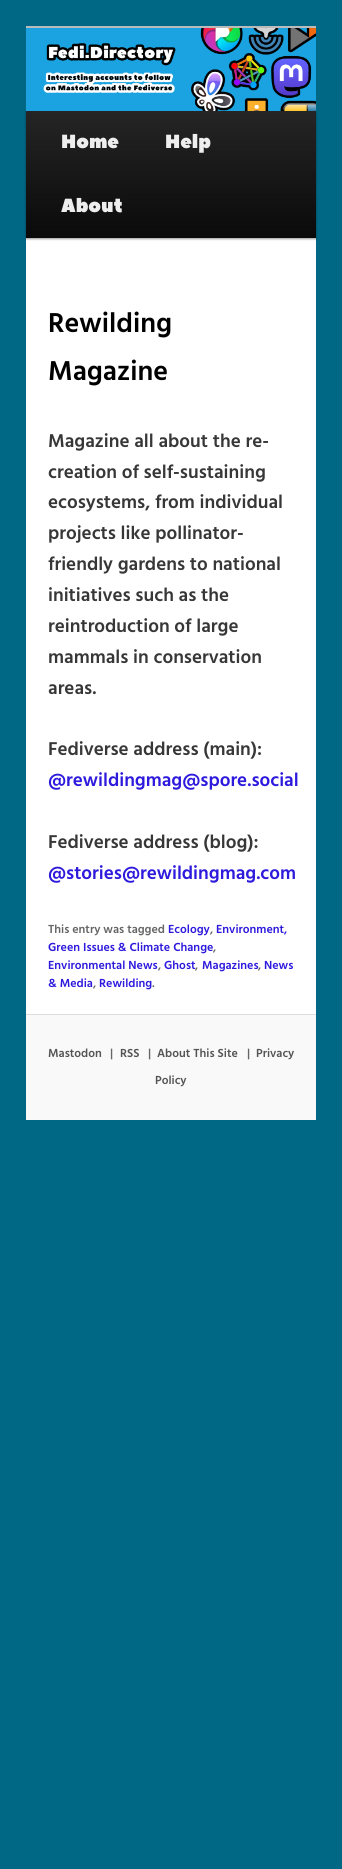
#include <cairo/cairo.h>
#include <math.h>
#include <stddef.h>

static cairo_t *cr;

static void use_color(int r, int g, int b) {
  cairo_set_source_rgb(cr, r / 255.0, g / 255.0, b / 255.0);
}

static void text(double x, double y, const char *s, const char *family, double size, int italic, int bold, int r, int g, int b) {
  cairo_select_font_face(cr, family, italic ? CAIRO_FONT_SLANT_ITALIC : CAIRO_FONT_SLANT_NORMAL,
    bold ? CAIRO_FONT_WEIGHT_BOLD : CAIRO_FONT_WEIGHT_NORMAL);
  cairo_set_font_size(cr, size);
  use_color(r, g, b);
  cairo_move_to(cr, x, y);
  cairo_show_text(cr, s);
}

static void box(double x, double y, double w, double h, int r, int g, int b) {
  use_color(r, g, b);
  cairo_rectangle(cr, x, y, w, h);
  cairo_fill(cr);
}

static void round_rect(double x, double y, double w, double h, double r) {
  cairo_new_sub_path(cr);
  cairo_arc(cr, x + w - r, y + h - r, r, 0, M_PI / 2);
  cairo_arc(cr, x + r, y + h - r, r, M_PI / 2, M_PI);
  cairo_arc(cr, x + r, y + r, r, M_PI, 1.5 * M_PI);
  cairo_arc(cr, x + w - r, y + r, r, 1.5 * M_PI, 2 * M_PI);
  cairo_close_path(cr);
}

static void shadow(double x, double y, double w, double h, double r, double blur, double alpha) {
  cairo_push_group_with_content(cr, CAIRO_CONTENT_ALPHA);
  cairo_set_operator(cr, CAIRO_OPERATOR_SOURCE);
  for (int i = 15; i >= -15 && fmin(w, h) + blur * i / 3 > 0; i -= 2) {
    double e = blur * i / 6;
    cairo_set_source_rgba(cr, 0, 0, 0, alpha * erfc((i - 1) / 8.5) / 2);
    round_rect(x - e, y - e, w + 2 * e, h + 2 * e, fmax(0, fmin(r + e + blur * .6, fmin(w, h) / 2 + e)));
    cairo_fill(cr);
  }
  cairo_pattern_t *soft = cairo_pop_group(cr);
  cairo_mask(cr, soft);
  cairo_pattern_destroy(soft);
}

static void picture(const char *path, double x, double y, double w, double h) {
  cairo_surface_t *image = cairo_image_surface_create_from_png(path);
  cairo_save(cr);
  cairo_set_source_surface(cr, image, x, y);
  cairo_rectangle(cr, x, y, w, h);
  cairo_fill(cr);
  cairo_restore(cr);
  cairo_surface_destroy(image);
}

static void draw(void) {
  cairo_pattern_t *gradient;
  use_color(0, 103, 132);
  cairo_paint(cr);
  box(26, 238, 290, 776, 255, 255, 255);
  box(26, 26, 290, 2, 187, 187, 187);
  use_color(0, 0, 0);
  shadow(26, 112, 290, 127, 0, 1, 0.4);
  picture("img_01.png", 26, 28, 290, 83);
  gradient = cairo_pattern_create_linear(171, 111, 171, 238);
  cairo_pattern_add_color_stop_rgba(gradient, 0, 0.145, 0.145, 0.145, 1);
  cairo_pattern_add_color_stop_rgba(gradient, 1, 0.039, 0.039, 0.039, 1);
  cairo_set_source(cr, gradient);
  cairo_pattern_destroy(gradient);
  cairo_rectangle(cr, 26, 111, 290, 127);
  cairo_fill(cr);
  box(26, 1015, 290, 105, 249, 249, 249);
  box(26, 1014, 290, 1, 221, 221, 221);
  text(61, 148, "Home", "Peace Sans", 19, 0, 0, 238, 238, 238);
  text(165, 148, "Help", "Peace Sans", 19, 0, 0, 238, 238, 238);
  text(61, 212, "About", "Peace Sans", 19, 0, 0, 238, 238, 238);
  text(48, 332, "Rewilding", "Hind SemiBold", 28, 0, 0, 0, 0, 0);
  text(48, 380, "Magazine", "Hind SemiBold", 28, 0, 0, 0, 0, 0);
  text(48, 447, "Magazine all about the re-", "Hind SemiBold", 19, 0, 0, 55, 55, 55);
  text(48, 478, "creation of self-sustaining", "Hind SemiBold", 19, 0, 0, 55, 55, 55);
  text(48, 508, "ecosystems, from individual", "Hind SemiBold", 19, 0, 0, 55, 55, 55);
  text(48, 539, "projects like pollinator-", "Hind SemiBold", 19, 0, 0, 55, 55, 55);
  text(48, 570, "friendly gardens to national", "Hind SemiBold", 19, 0, 0, 55, 55, 55);
  text(48, 601, "initiatives such as the", "Hind SemiBold", 19, 0, 0, 55, 55, 55);
  text(48, 632, "reintroduction of large", "Hind SemiBold", 19, 0, 0, 55, 55, 55);
  text(48, 663, "mammals in conservation", "Hind SemiBold", 19, 0, 0, 55, 55, 55);
  text(48, 694, "areas.", "Hind SemiBold", 19, 0, 0, 55, 55, 55);
  text(48, 755, "Fediverse address (main):", "Hind SemiBold", 19, 0, 0, 55, 55, 55);
  text(48, 786, "@rewildingmag@spore.social", "Hind SemiBold", 19, 0, 0, 46, 26, 221);
  text(48, 848, "Fediverse address (blog):", "Hind SemiBold", 19, 0, 0, 55, 55, 55);
  text(48, 879, "@stories@rewildingmag.com", "Hind SemiBold", 19, 0, 0, 46, 26, 221);
  text(48, 933, "This entry was tagged", "Hind SemiBold", 12, 0, 0, 102, 102, 102);
  text(168, 933, "Ecology", "Hind SemiBold", 12, 0, 0, 46, 26, 221);
  text(210, 933, ",", "Hind SemiBold", 12, 0, 0, 102, 102, 102);
  text(216, 933, "Environment,", "Hind SemiBold", 12, 0, 0, 46, 26, 221);
  text(48, 951, "Green Issues & Climate Change", "Hind SemiBold", 12, 0, 0, 46, 26, 221);
  text(213, 951, ",", "Hind SemiBold", 12, 0, 0, 102, 102, 102);
  text(48, 969, "Environmental News", "Hind SemiBold", 12, 0, 0, 46, 26, 221);
  text(158, 969, ",", "Hind SemiBold", 12, 0, 0, 102, 102, 102);
  text(164, 969, "Ghost", "Hind SemiBold", 12, 0, 0, 46, 26, 221);
  text(195, 969, ",", "Hind SemiBold", 12, 0, 0, 102, 102, 102);
  text(202, 969, "Magazines", "Hind SemiBold", 12, 0, 0, 46, 26, 221);
  text(258, 969, ",", "Hind SemiBold", 12, 0, 0, 102, 102, 102);
  text(264, 969, "News", "Hind SemiBold", 12, 0, 0, 46, 26, 221);
  text(48, 987, "& Media", "Hind SemiBold", 12, 0, 0, 46, 26, 221);
  text(93, 987, ",", "Hind SemiBold", 12, 0, 0, 102, 102, 102);
  text(99, 987, "Rewilding", "Hind SemiBold", 12, 0, 0, 46, 26, 221);
  text(152, 987, ".", "Hind SemiBold", 12, 0, 0, 102, 102, 102);
  text(48, 1057, "Mastodon", "Hind SemiBold", 12, 0, 0, 85, 85, 85);
  text(110, 1057, "|", "Hind SemiBold", 12, 0, 0, 102, 102, 102);
  text(120, 1057, "RSS", "Hind SemiBold", 12, 0, 0, 85, 85, 85);
  text(148, 1057, "|", "Hind SemiBold", 12, 0, 0, 102, 102, 102);
  text(157, 1057, "About This Site", "Hind SemiBold", 12, 0, 0, 85, 85, 85);
  text(247, 1057, "|", "Hind SemiBold", 12, 0, 0, 102, 102, 102);
  text(256, 1057, "Privacy", "Hind SemiBold", 12, 0, 0, 85, 85, 85);
  text(155, 1084, "Policy", "Hind SemiBold", 12, 0, 0, 85, 85, 85);
}

int main(void) {
  cairo_surface_t *surface = cairo_image_surface_create(CAIRO_FORMAT_RGB24, 342, 1869);
  cr = cairo_create(surface);
  cairo_font_options_t *options = cairo_font_options_create();
  cairo_font_options_set_hint_metrics(options, CAIRO_HINT_METRICS_OFF);
  cairo_font_options_set_hint_style(options, CAIRO_HINT_STYLE_NONE);
  cairo_set_font_options(cr, options);
  cairo_set_miter_limit(cr, 4);
  draw();
  cairo_surface_write_to_png(surface, "out.png");
  cairo_font_options_destroy(options);
  cairo_destroy(cr);
  cairo_surface_destroy(surface);
  return 0;
}
